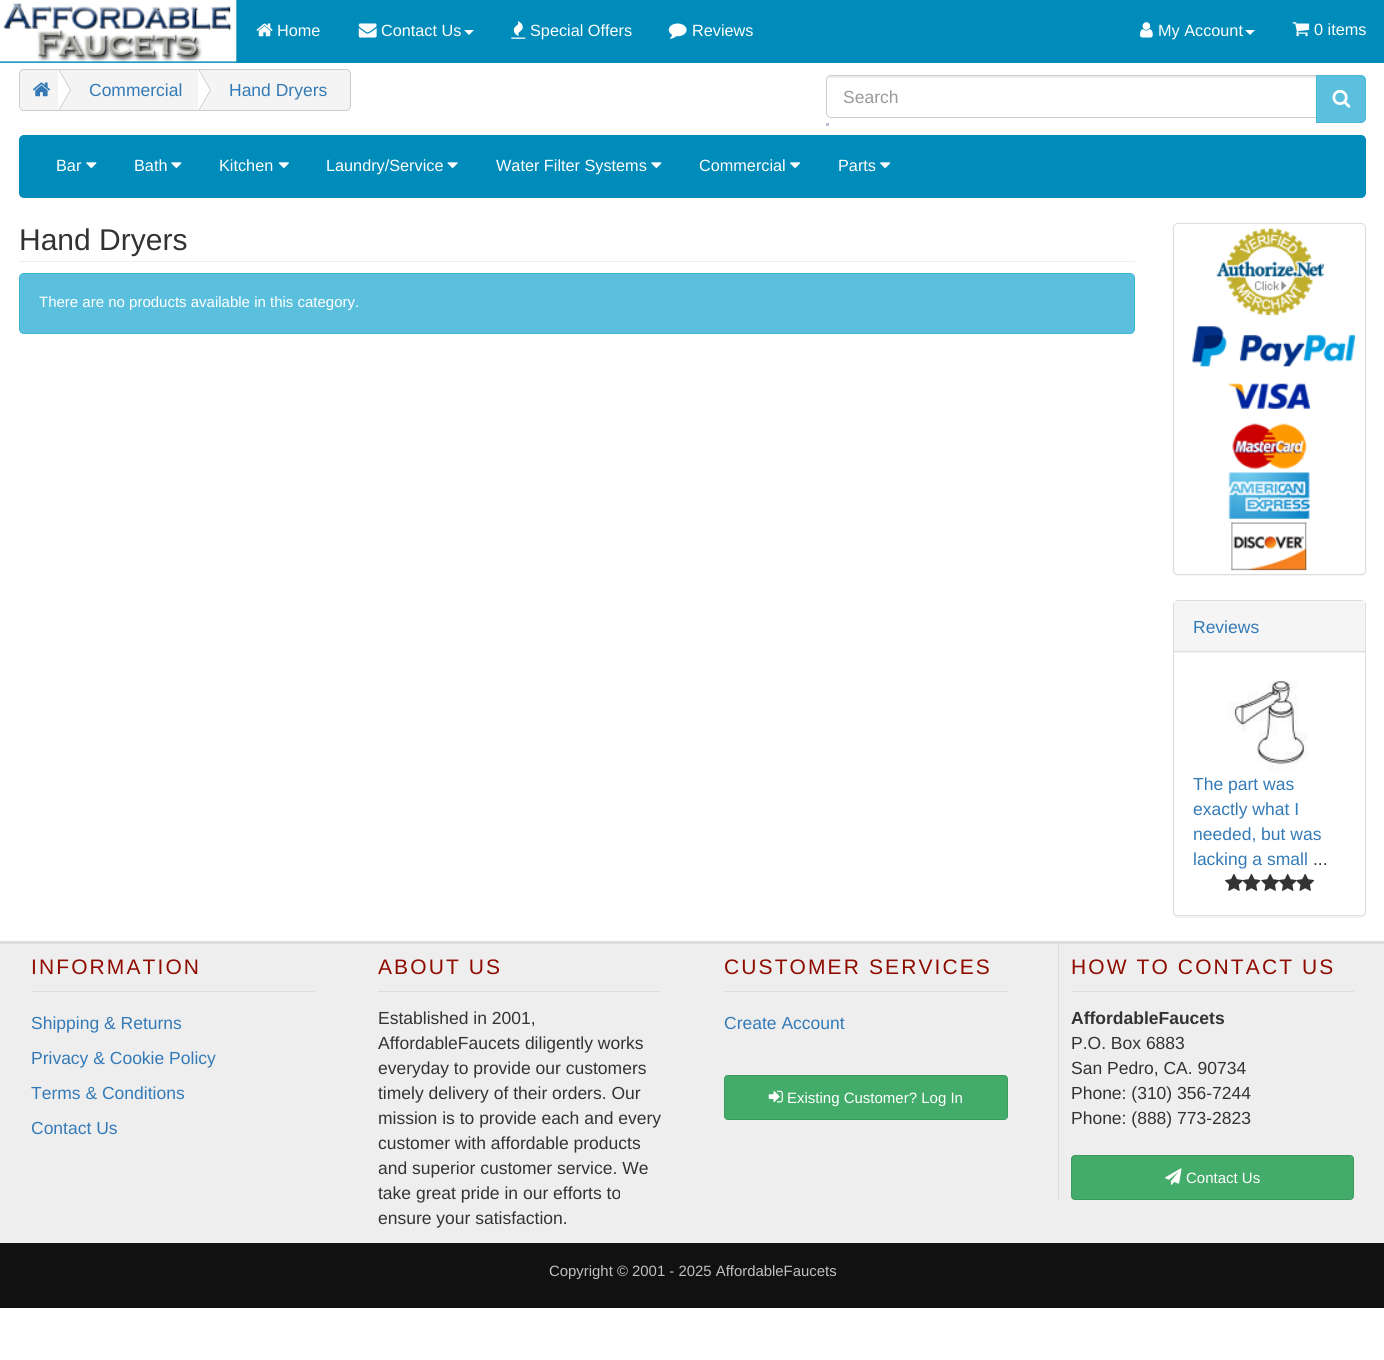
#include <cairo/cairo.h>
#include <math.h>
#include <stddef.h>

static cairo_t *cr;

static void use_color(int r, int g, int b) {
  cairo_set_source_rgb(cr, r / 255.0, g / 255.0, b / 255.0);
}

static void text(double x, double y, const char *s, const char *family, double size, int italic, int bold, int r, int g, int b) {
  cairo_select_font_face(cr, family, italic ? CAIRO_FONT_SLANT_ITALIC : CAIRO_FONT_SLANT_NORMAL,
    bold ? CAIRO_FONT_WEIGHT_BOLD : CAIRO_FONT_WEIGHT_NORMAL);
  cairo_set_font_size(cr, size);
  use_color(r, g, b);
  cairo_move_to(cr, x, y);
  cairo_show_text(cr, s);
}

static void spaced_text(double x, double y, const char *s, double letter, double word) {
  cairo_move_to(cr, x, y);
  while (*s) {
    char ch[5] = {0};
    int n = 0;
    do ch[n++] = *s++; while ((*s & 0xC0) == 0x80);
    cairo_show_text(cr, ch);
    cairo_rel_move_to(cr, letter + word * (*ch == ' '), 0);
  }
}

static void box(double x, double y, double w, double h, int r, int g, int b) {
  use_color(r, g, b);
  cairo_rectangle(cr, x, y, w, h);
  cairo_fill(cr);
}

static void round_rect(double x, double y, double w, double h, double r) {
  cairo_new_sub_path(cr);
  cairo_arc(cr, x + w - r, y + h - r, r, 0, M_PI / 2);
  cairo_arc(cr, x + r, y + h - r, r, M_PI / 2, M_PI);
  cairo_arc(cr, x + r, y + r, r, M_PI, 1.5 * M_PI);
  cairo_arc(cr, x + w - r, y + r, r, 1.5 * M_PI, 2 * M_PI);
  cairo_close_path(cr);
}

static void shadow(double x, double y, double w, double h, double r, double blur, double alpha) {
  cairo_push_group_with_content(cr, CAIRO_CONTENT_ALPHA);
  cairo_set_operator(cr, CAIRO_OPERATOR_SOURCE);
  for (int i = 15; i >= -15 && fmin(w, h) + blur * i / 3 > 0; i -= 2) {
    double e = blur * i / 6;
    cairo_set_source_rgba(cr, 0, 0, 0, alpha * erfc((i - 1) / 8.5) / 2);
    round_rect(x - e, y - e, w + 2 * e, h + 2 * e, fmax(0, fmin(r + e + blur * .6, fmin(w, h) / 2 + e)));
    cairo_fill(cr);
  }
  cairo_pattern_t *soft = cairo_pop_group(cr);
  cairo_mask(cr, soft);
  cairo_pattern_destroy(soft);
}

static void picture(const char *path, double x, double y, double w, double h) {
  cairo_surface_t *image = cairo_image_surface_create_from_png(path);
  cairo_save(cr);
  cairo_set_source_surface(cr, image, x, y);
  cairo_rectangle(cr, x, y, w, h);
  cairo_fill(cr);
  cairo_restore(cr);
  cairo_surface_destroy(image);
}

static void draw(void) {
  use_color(255, 255, 255);
  cairo_paint(cr);
  box(0, 0, 1384, 63, 0, 140, 186);
  picture("img_01.png", 0, 0, 237, 63);
  picture("img_02.png", 256, 23, 17, 14);
  picture("img_03.png", 358, 23, 19, 15);
  use_color(255, 255, 255);
  cairo_new_path(cr);
  cairo_move_to(cr, 464, 30);
  cairo_line_to(cr, 474, 30);
  cairo_line_to(cr, 469, 35);
  cairo_close_path(cr);
  cairo_fill(cr);
  picture("img_04.png", 511, 21, 15, 18);
  picture("img_05.png", 668, 23, 19, 16);
  picture("img_06.png", 1140, 22, 13, 16);
  cairo_new_path(cr);
  cairo_move_to(cr, 1245, 30);
  cairo_line_to(cr, 1255, 30);
  cairo_line_to(cr, 1250, 35);
  cairo_close_path(cr);
  cairo_fill(cr);
  picture("img_07.png", 1292, 22, 18, 15);
  use_color(244, 244, 244);
  cairo_new_path(cr);
  cairo_move_to(cr, 24, 69.5);
  cairo_line_to(cr, 58.5, 69.5);
  cairo_line_to(cr, 58.5, 110.5);
  cairo_line_to(cr, 24, 110.5);
  cairo_curve_to(cr, 21.5, 110.5, 19.5, 108.5, 19.5, 106);
  cairo_line_to(cr, 19.5, 74);
  cairo_curve_to(cr, 19.5, 71.5, 21.5, 69.5, 24, 69.5);
  cairo_close_path(cr);
  cairo_fill_preserve(cr);
  use_color(204, 204, 204);
  cairo_set_line_width(cr, 1);
  cairo_stroke(cr);
  use_color(244, 244, 244);
  cairo_rectangle(cr, 58.5, 69.5, 140, 41);
  cairo_fill_preserve(cr);
  use_color(204, 204, 204);
  cairo_stroke(cr);
  cairo_new_path(cr);
  cairo_move_to(cr, 59, 111);
  cairo_line_to(cr, 59, 69);
  cairo_line_to(cr, 71, 90);
  cairo_close_path(cr);
  cairo_fill(cr);
  use_color(255, 255, 255);
  cairo_new_path(cr);
  cairo_move_to(cr, 58, 111);
  cairo_line_to(cr, 58, 69);
  cairo_line_to(cr, 70, 90);
  cairo_close_path(cr);
  cairo_fill(cr);
  picture("img_08.png", 33, 82, 17, 15);
  use_color(244, 244, 244);
  cairo_new_path(cr);
  cairo_move_to(cr, 198.5, 69.5);
  cairo_line_to(cr, 346, 69.5);
  cairo_curve_to(cr, 348.5, 69.5, 350.5, 71.5, 350.5, 74);
  cairo_line_to(cr, 350.5, 106);
  cairo_curve_to(cr, 350.5, 108.5, 348.5, 110.5, 346, 110.5);
  cairo_line_to(cr, 198.5, 110.5);
  cairo_close_path(cr);
  cairo_fill_preserve(cr);
  use_color(204, 204, 204);
  cairo_stroke(cr);
  cairo_new_path(cr);
  cairo_move_to(cr, 199, 111);
  cairo_line_to(cr, 199, 69);
  cairo_line_to(cr, 211, 90);
  cairo_close_path(cr);
  cairo_fill(cr);
  use_color(255, 255, 255);
  cairo_new_path(cr);
  cairo_move_to(cr, 198, 111);
  cairo_line_to(cr, 198, 69);
  cairo_line_to(cr, 210, 90);
  cairo_close_path(cr);
  cairo_fill(cr);
  use_color(236, 236, 236);
  cairo_new_path(cr);
  cairo_move_to(cr, 831, 78);
  cairo_line_to(cr, 1316, 78);
  cairo_line_to(cr, 1316, 76);
  cairo_line_to(cr, 832, 76);
  cairo_curve_to(cr, 829, 76, 828, 78, 828, 81);
  cairo_curve_to(cr, 828, 79, 829, 78, 831, 78);
  cairo_close_path(cr);
  cairo_fill(cr);
  cairo_new_path(cr);
  cairo_move_to(cr, 831, 75.5);
  cairo_line_to(cr, 1317.5, 75.5);
  cairo_line_to(cr, 1317.5, 117.5);
  cairo_line_to(cr, 831, 117.5);
  cairo_curve_to(cr, 828.5, 117.5, 826.5, 115.5, 826.5, 113);
  cairo_line_to(cr, 826.5, 80);
  cairo_curve_to(cr, 826.5, 77.5, 828.5, 75.5, 831, 75.5);
  cairo_close_path(cr);
  use_color(204, 204, 204);
  cairo_stroke(cr);
  use_color(91, 192, 222);
  cairo_new_path(cr);
  cairo_move_to(cr, 1316.5, 75.5);
  cairo_line_to(cr, 1361, 75.5);
  cairo_curve_to(cr, 1363.5, 75.5, 1365.5, 77.5, 1365.5, 80);
  cairo_line_to(cr, 1365.5, 118);
  cairo_curve_to(cr, 1365.5, 120.5, 1363.5, 122.5, 1361, 122.5);
  cairo_line_to(cr, 1316.5, 122.5);
  cairo_close_path(cr);
  cairo_fill_preserve(cr);
  use_color(70, 184, 218);
  cairo_stroke(cr);
  picture("img_09.png", 1332, 89, 19, 19);
  box(826, 123, 3, 3, 187, 195, 211);
  use_color(0, 140, 186);
  round_rect(19, 135, 1347, 63, 5);
  cairo_fill(cr);
  picture("img_10.png", 86, 162, 11, 6);
  picture("img_10.png", 171, 162, 11, 6);
  picture("img_11.png", 278, 162, 11, 6);
  picture("img_12.png", 447, 162, 11, 6);
  picture("img_10.png", 651, 162, 11, 6);
  picture("img_13.png", 790, 162, 11, 6);
  picture("img_13.png", 880, 162, 11, 6);
  box(19, 261, 1116, 1, 238, 238, 238);
  use_color(91, 192, 222);
  round_rect(19.5, 273.5, 1115, 60, 4.5);
  cairo_fill_preserve(cr);
  use_color(61, 181, 216);
  cairo_stroke(cr);
  use_color(0, 0, 0);
  shadow(1173, 224, 193, 352, 5, 0.5, 0.05);
  use_color(255, 255, 255);
  round_rect(1173.5, 223.5, 192, 351, 4.5);
  cairo_fill_preserve(cr);
  use_color(221, 221, 221);
  cairo_stroke(cr);
  picture("img_14.png", 1216, 228, 108, 88);
  picture("img_15.png", 1192, 326, 163, 41);
  picture("img_16.png", 1228, 383, 82, 26);
  picture("img_17.png", 1232, 423, 75, 46);
  picture("img_18.png", 1228, 472, 82, 47);
  picture("img_19.png", 1231, 522, 76, 49);
  cairo_save(cr);
  cairo_set_fill_rule(cr, CAIRO_FILL_RULE_EVEN_ODD);
  cairo_new_path(cr);
  cairo_move_to(cr, 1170, 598);
  cairo_line_to(cr, 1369, 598);
  cairo_line_to(cr, 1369, 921);
  cairo_line_to(cr, 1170, 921);
  cairo_close_path(cr);
  cairo_move_to(cr, 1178, 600);
  cairo_line_to(cr, 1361, 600);
  cairo_curve_to(cr, 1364, 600, 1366, 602, 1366, 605);
  cairo_line_to(cr, 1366, 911);
  cairo_curve_to(cr, 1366, 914, 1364, 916, 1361, 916);
  cairo_line_to(cr, 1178, 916);
  cairo_curve_to(cr, 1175, 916, 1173, 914, 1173, 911);
  cairo_line_to(cr, 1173, 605);
  cairo_curve_to(cr, 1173, 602, 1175, 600, 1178, 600);
  cairo_close_path(cr);
  cairo_clip(cr);
  use_color(0, 0, 0);
  shadow(1173, 601, 193, 317, 5, 0.5, 0.05);
  cairo_restore(cr);
  round_rect(1173.5, 600.5, 192, 315, 4.5);
  cairo_stroke(cr);
  box(1174, 601, 191, 52, 245, 245, 245);
  box(1174, 651, 191, 1, 221, 221, 221);
  picture("img_20.png", 1228, 681, 80, 90);
  picture("img_21.png", 1225, 873, 18, 18);
  picture("img_22.png", 1242, 873, 19, 18);
  picture("img_23.png", 1261, 873, 19, 18);
  picture("img_24.png", 1279, 873, 18, 18);
  picture("img_25.png", 1296, 873, 19, 18);
  box(0, 944, 1384, 299, 238, 238, 238);
  box(0, 941, 1384, 3, 221, 221, 221);
  box(31, 991, 284, 1, 221, 221, 221);
  box(378, 991, 283, 1, 221, 221, 221);
  box(724, 991, 284, 1, 221, 221, 221);
  use_color(67, 172, 106);
  round_rect(724.5, 1075.5, 283, 44, 3.5);
  cairo_fill_preserve(cr);
  use_color(60, 154, 95);
  cairo_stroke(cr);
  picture("img_26.png", 768, 1090, 15, 13);
  box(1058, 944, 1, 256, 221, 221, 221);
  box(1071, 991, 283, 1, 221, 221, 221);
  use_color(67, 172, 106);
  round_rect(1071.5, 1155.5, 282, 44, 3.5);
  cairo_fill_preserve(cr);
  use_color(60, 154, 95);
  cairo_stroke(cr);
  picture("img_27.png", 1165, 1168, 17, 17);
  box(0, 1243, 1384, 65, 17, 17, 17);
  box(1383, 1358, 1, 2, 245, 245, 245);
  text(277, 36, "Home", "Liberation Sans", 16.25, 0, 0, 255, 255, 255);
  text(381, 36, "Contact Us", "Liberation Sans", 16.25, 0, 0, 255, 255, 255);
  text(530, 36, "Special Offers", "Liberation Sans", 16.25, 0, 0, 255, 255, 255);
  text(692, 36, "Reviews", "Liberation Sans", 16.25, 0, 0, 255, 255, 255);
  text(1158, 36, "My Account", "Liberation Sans", 16.25, 0, 0, 255, 255, 255);
  text(1314, 35, "0 items", "Liberation Sans", 16.25, 0, 0, 255, 255, 255);
  text(89, 96, "Commercial", "Liberation Sans", 17.5, 0, 0, 51, 122, 183);
  text(229, 96, "Hand Dryers", "Liberation Sans", 17.5, 0, 0, 51, 122, 183);
  text(843, 103, "Search", "Liberation Sans", 17.5, 0, 0, 153, 153, 153);
  text(56, 171, "Bar", "Liberation Sans", 16.25, 0, 0, 255, 255, 255);
  text(134, 171, "Bath", "Liberation Sans", 16.25, 0, 0, 255, 255, 255);
  text(219, 171, "Kitchen", "Liberation Sans", 16.25, 0, 0, 255, 255, 255);
  text(326, 171, "Laundry/Service", "Liberation Sans", 16.25, 0, 0, 255, 255, 255);
  text(496, 171, "Water Filter Systems", "Liberation Sans", 16.25, 0, 0, 255, 255, 255);
  text(699, 171, "Commercial", "Liberation Sans", 16.25, 0, 0, 255, 255, 255);
  text(838, 171, "Parts", "Liberation Sans", 16.25, 0, 0, 255, 255, 255);
  text(19, 250, "Hand Dryers", "Liberation Sans", 30, 0, 0, 51, 51, 51);
  text(39, 307, "There are no products available in this category.", "Liberation Sans", 15, 0, 0, 255, 255, 255);
  text(1193, 633, "Reviews", "Liberation Sans", 17.5, 0, 0, 51, 122, 183);
  text(1193, 790, "The part was", "Liberation Sans", 17.5, 0, 0, 51, 122, 183);
  text(1193, 815, "exactly what I", "Liberation Sans", 17.5, 0, 0, 51, 122, 183);
  text(1193, 840, "needed, but was", "Liberation Sans", 17.5, 0, 0, 51, 122, 183);
  text(1193, 865, "lacking a small", "Liberation Sans", 17.5, 0, 0, 51, 122, 183);
  text(1313, 865, "...", "Liberation Sans", 17.5, 0, 0, 51, 51, 51);
  cairo_set_font_size(cr, 21);
  use_color(142, 11, 0);
  spaced_text(31, 974, "INFORMATION", 2.1, 0);
  text(31, 1029, "Shipping & Returns", "Liberation Sans", 17.5, 0, 0, 51, 122, 183);
  text(31, 1064, "Privacy & Cookie Policy", "Liberation Sans", 17.5, 0, 0, 51, 122, 183);
  text(31, 1099, "Terms & Conditions", "Liberation Sans", 17.5, 0, 0, 51, 122, 183);
  text(31, 1134, "Contact Us", "Liberation Sans", 17.5, 0, 0, 51, 122, 183);
  cairo_set_font_size(cr, 21);
  use_color(142, 11, 0);
  spaced_text(378, 974, "ABOUT US", 2.1, 0);
  text(378, 1024, "Established in 2001,", "Liberation Sans", 17.5, 0, 0, 51, 51, 51);
  text(378, 1049, "AffordableFaucets diligently works", "Liberation Sans", 17.5, 0, 0, 51, 51, 51);
  text(378, 1074, "everyday to provide our customers", "Liberation Sans", 17.5, 0, 0, 51, 51, 51);
  text(378, 1099, "timely delivery of their orders. Our", "Liberation Sans", 17.5, 0, 0, 51, 51, 51);
  text(378, 1124, "mission is to provide each and every", "Liberation Sans", 17.5, 0, 0, 51, 51, 51);
  text(378, 1149, "customer with affordable products", "Liberation Sans", 17.5, 0, 0, 51, 51, 51);
  text(378, 1174, "and superior customer service. We", "Liberation Sans", 17.5, 0, 0, 51, 51, 51);
  text(378, 1199, "take great pride in our efforts to", "Liberation Sans", 17.5, 0, 0, 51, 51, 51);
  text(378, 1224, "ensure your satisfaction.", "Liberation Sans", 17.5, 0, 0, 51, 51, 51);
  cairo_set_font_size(cr, 21);
  use_color(142, 11, 0);
  spaced_text(724, 974, "CUSTOMER SERVICES", 2.1, 0);
  text(724, 1029, "Create Account", "Liberation Sans", 17.5, 0, 0, 51, 122, 183);
  text(787, 1103, "Existing Customer? Log In", "Liberation Sans", 15, 0, 0, 255, 255, 255);
  cairo_set_font_size(cr, 21);
  use_color(142, 11, 0);
  spaced_text(1071, 974, "HOW TO CONTACT US", 2.1, 0);
  text(1071, 1024, "AffordableFaucets", "Liberation Sans", 17.5, 0, 1, 51, 51, 51);
  text(1071, 1049, "P.O. Box 6883", "Liberation Sans", 17.5, 0, 0, 51, 51, 51);
  text(1071, 1074, "San Pedro, CA. 90734", "Liberation Sans", 17.5, 0, 0, 51, 51, 51);
  text(1071, 1099, "Phone: (310) 356-7244", "Liberation Sans", 17.5, 0, 0, 51, 51, 51);
  text(1071, 1124, "Phone: (888) 773-2823", "Liberation Sans", 17.5, 0, 0, 51, 51, 51);
  text(1186, 1183, "Contact Us", "Liberation Sans", 15, 0, 0, 255, 255, 255);
  text(549, 1276, "Copyright © 2001 - 2025 AffordableFaucets", "Liberation Sans", 14.9, 0, 0, 192, 192, 192);
}

int main(void) {
  cairo_surface_t *surface = cairo_image_surface_create(CAIRO_FORMAT_RGB24, 1384, 1360);
  cr = cairo_create(surface);
  cairo_font_options_t *options = cairo_font_options_create();
  cairo_font_options_set_hint_metrics(options, CAIRO_HINT_METRICS_OFF);
  cairo_font_options_set_hint_style(options, CAIRO_HINT_STYLE_NONE);
  cairo_set_font_options(cr, options);
  cairo_set_miter_limit(cr, 4);
  draw();
  cairo_surface_write_to_png(surface, "out.png");
  cairo_font_options_destroy(options);
  cairo_destroy(cr);
  cairo_surface_destroy(surface);
  return 0;
}
